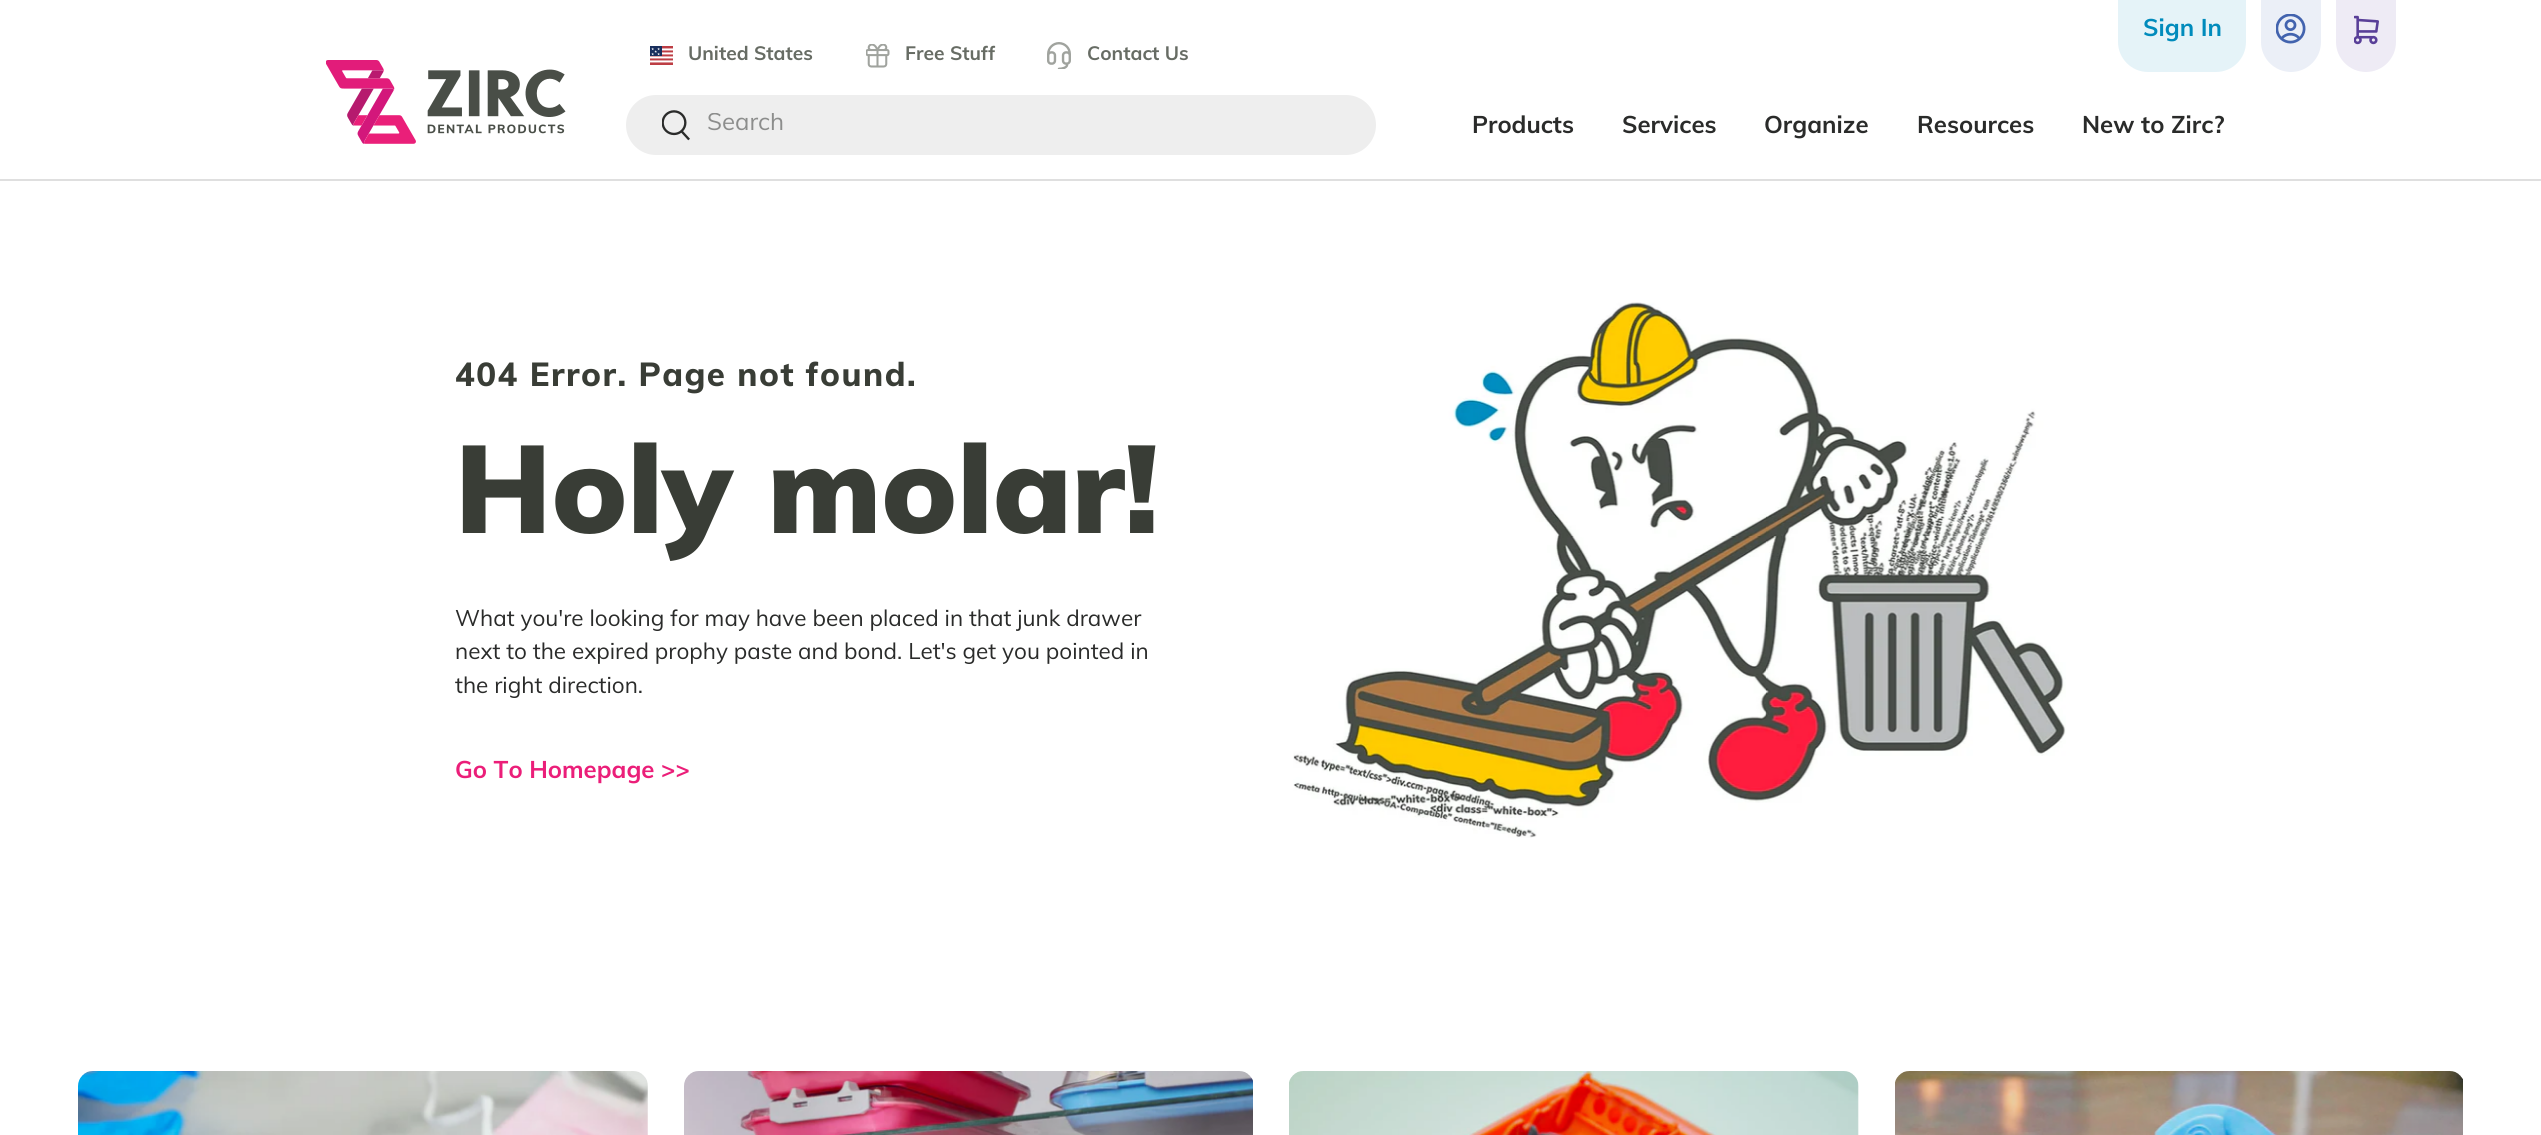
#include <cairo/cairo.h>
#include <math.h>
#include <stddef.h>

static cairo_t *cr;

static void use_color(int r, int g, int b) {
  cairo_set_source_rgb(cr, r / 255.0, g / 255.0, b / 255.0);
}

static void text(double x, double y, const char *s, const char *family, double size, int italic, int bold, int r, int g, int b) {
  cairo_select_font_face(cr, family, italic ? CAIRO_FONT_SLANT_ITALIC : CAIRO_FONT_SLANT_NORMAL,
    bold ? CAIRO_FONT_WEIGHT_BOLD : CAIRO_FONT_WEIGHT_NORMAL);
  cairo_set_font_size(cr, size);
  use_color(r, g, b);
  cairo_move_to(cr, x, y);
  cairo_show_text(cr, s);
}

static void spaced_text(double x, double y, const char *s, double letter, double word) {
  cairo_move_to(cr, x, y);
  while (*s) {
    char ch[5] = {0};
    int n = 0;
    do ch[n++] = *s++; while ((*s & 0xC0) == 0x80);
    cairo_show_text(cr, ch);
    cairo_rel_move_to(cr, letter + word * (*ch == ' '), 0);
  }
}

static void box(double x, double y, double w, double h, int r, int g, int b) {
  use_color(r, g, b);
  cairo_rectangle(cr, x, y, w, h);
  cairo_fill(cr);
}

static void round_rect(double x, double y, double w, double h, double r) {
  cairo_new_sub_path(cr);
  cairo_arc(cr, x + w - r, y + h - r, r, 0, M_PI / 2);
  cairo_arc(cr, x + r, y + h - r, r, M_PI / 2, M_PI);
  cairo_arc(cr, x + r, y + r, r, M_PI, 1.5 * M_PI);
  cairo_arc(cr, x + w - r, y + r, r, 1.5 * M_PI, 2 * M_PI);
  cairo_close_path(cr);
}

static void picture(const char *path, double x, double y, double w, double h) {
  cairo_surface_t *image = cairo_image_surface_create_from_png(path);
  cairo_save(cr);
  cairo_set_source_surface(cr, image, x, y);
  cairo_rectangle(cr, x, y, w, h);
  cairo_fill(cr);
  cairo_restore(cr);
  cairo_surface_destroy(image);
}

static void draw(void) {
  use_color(255, 255, 255);
  cairo_paint(cr);
  box(0, 179, 2541, 2, 223, 223, 223);
  use_color(229, 243, 248);
  cairo_new_path(cr);
  cairo_move_to(cr, 2118, 0);
  cairo_line_to(cr, 2246, 0);
  cairo_line_to(cr, 2246, 42);
  cairo_curve_to(cr, 2246, 58.5, 2232.5, 72, 2216, 72);
  cairo_line_to(cr, 2148, 72);
  cairo_curve_to(cr, 2131.5, 72, 2118, 58.5, 2118, 42);
  cairo_close_path(cr);
  cairo_fill(cr);
  use_color(235, 239, 247);
  cairo_new_path(cr);
  cairo_move_to(cr, 2261, 0);
  cairo_line_to(cr, 2321, 0);
  cairo_line_to(cr, 2321, 42);
  cairo_curve_to(cr, 2321, 58.5, 2307.5, 72, 2291, 72);
  cairo_curve_to(cr, 2274.5, 72, 2261, 58.5, 2261, 42);
  cairo_close_path(cr);
  cairo_fill(cr);
  picture("img_01.png", 2276, 14, 30, 30);
  use_color(238, 235, 245);
  cairo_new_path(cr);
  cairo_move_to(cr, 2336, 0);
  cairo_line_to(cr, 2396, 0);
  cairo_line_to(cr, 2396, 42);
  cairo_curve_to(cr, 2396, 58.5, 2382.5, 72, 2366, 72);
  cairo_curve_to(cr, 2349.5, 72, 2336, 58.5, 2336, 42);
  cairo_close_path(cr);
  cairo_fill(cr);
  picture("img_02.png", 2354, 15, 25, 30);
  picture("img_03.png", 326, 60, 240, 84);
  picture("img_04.png", 650, 46, 23, 19);
  picture("img_05.png", 866, 44, 24, 24);
  picture("img_06.png", 1047, 42, 24, 27);
  use_color(238, 238, 238);
  round_rect(626, 95, 750, 60, 30);
  cairo_fill(cr);
  picture("img_07.png", 662, 110, 28, 31);
  picture("img_08.png", 1293, 302, 773, 536);
  picture("img_09.png", 78, 1071, 570, 64);
  picture("img_10.png", 684, 1071, 569, 64);
  picture("img_11.png", 1289, 1071, 570, 64);
  picture("img_12.png", 1895, 1071, 568, 64);
  text(2143, 36, "Sign In", "Muli", 24, 0, 1, 0, 139, 188);
  text(688, 60, "United States", "Muli", 19.25, 0, 1, 103, 108, 100);
  text(905, 60, "Free Stuff", "Muli", 19.25, 0, 1, 103, 108, 100);
  text(1087, 60, "Contact Us", "Muli", 19.25, 0, 1, 103, 108, 100);
  cairo_save(cr);
  cairo_rectangle(cr, 707, 113, 648, 24);
  cairo_clip(cr);
  text(707, 130, "Search", "Muli", 24, 0, 0, 140, 141, 140);
  cairo_restore(cr);
  text(1472, 133, "Products", "Muli", 24, 0, 1, 42, 43, 42);
  text(1622, 133, "Services", "Muli", 24, 0, 1, 42, 43, 42);
  text(1764, 133, "Organize", "Muli", 24, 0, 1, 42, 43, 42);
  text(1917, 133, "Resources", "Muli", 24, 0, 1, 42, 43, 42);
  text(2082, 133, "New to Zirc?", "Muli", 24, 0, 1, 42, 43, 42);
  cairo_select_font_face(cr, "Muli ExtraBold", CAIRO_FONT_SLANT_NORMAL, CAIRO_FONT_WEIGHT_NORMAL);
  cairo_set_font_size(cr, 33);
  use_color(57, 61, 54);
  spaced_text(455, 386, "404 Error. Page not found.", 1.5, 0);
  text(455, 533, "Holy molar!", "Muli Black", 123, 0, 0, 57, 61, 54);
  text(455, 626, "What you're looking for may have been placed in that junk drawer", "Muli", 22.5, 0, 0, 42, 43, 42);
  text(455, 659, "next to the expired prophy paste and bond. Let's get you pointed in", "Muli", 22.5, 0, 0, 42, 43, 42);
  text(455, 693, "the right direction.", "Muli", 22.5, 0, 0, 42, 43, 42);
  text(455, 778, "Go To Homepage >>", "Muli", 24, 0, 1, 235, 30, 121);
}

int main(void) {
  cairo_surface_t *surface = cairo_image_surface_create(CAIRO_FORMAT_RGB24, 2541, 1135);
  cr = cairo_create(surface);
  cairo_font_options_t *options = cairo_font_options_create();
  cairo_font_options_set_hint_metrics(options, CAIRO_HINT_METRICS_OFF);
  cairo_font_options_set_hint_style(options, CAIRO_HINT_STYLE_NONE);
  cairo_set_font_options(cr, options);
  cairo_set_miter_limit(cr, 4);
  draw();
  cairo_surface_write_to_png(surface, "out.png");
  cairo_font_options_destroy(options);
  cairo_destroy(cr);
  cairo_surface_destroy(surface);
  return 0;
}
